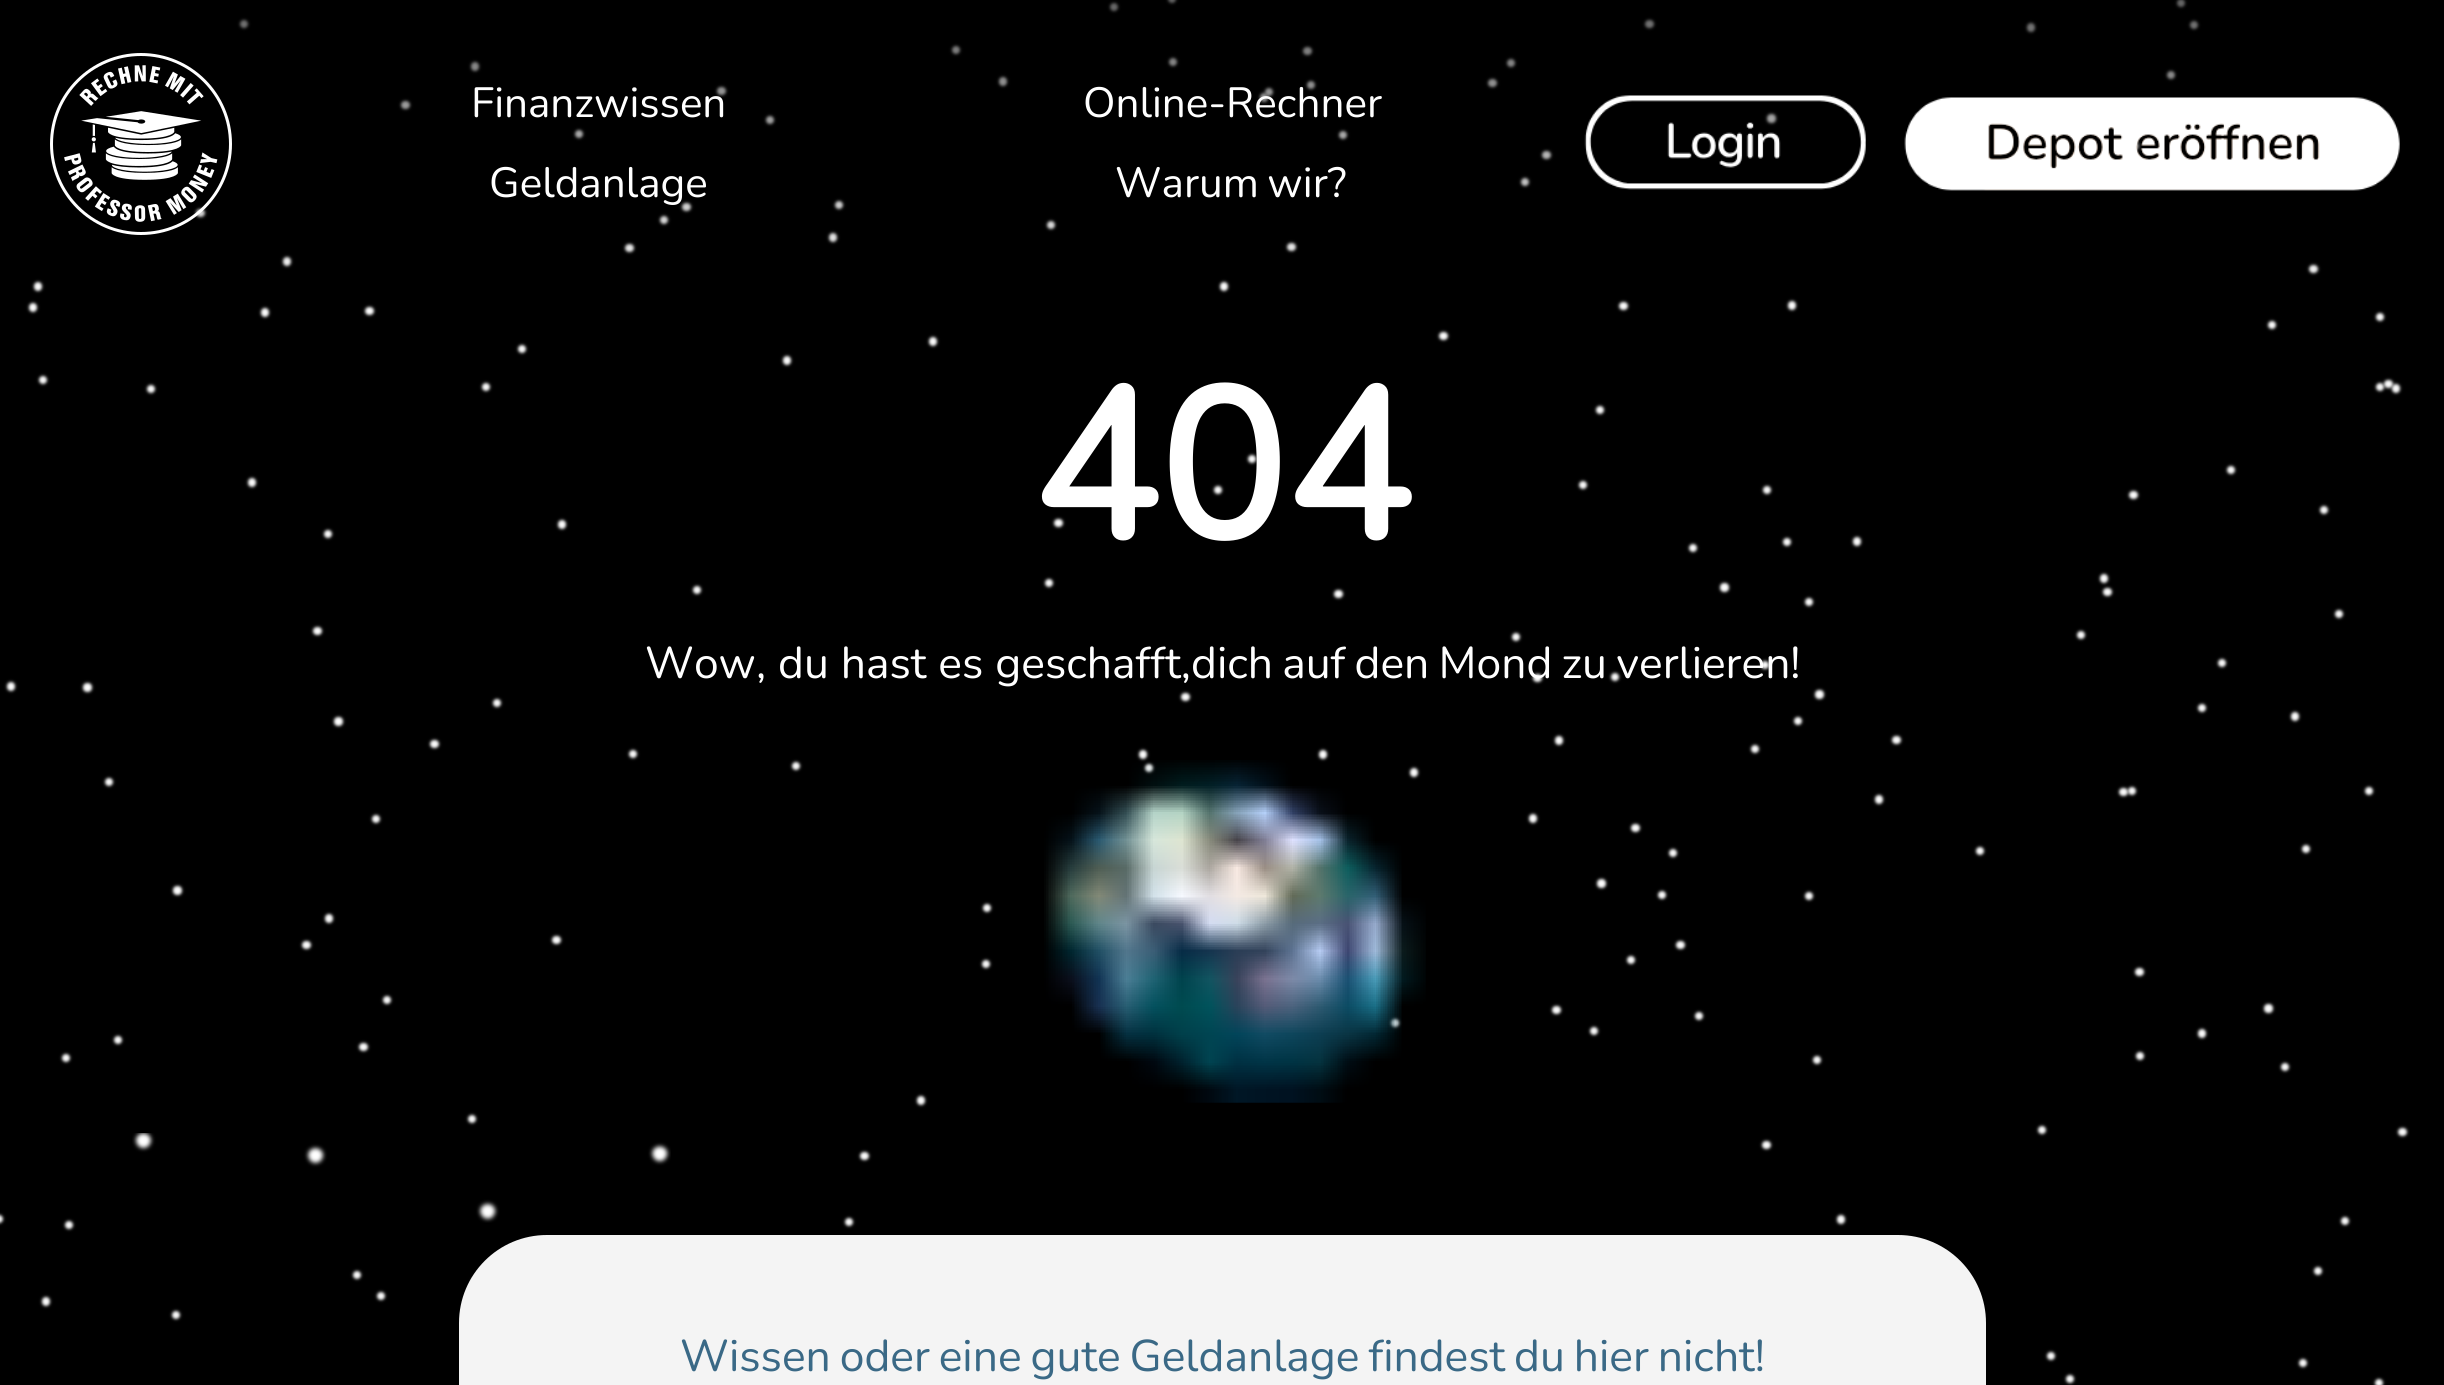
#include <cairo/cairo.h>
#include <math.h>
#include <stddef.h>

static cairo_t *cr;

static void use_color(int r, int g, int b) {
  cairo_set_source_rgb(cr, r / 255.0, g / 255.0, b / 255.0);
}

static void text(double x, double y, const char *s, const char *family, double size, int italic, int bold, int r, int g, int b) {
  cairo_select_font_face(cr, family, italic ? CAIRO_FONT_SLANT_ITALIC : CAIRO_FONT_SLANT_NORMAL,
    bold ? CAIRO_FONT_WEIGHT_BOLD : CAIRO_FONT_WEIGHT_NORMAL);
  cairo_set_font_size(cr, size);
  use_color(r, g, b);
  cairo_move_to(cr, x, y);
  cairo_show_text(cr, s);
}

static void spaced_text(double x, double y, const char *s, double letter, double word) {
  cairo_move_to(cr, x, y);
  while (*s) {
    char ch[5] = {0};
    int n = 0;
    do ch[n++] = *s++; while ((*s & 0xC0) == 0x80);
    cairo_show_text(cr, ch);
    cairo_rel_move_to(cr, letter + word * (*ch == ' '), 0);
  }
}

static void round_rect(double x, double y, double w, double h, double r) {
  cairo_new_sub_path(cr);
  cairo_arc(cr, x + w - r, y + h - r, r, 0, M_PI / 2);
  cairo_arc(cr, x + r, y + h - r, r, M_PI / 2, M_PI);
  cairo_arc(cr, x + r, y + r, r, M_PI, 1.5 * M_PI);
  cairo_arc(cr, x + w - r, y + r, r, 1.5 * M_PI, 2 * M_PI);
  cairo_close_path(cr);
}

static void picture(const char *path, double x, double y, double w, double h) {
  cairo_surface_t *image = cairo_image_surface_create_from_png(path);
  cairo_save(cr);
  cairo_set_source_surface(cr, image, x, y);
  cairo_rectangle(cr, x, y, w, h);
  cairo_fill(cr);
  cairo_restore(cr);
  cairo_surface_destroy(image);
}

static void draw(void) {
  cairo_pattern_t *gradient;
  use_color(0, 0, 0);
  cairo_paint(cr);
  picture("img_04.png", 0, 0, 2410, 1385);
  gradient = cairo_pattern_create_linear(1222, 0, 1222, 289);
  cairo_pattern_add_color_stop_rgba(gradient, 0, 0, 0, 0, 0.6);
  cairo_pattern_add_color_stop_rgba(gradient, 1, 0, 0, 0, 0);
  cairo_set_source(cr, gradient);
  cairo_pattern_destroy(gradient);
  cairo_rectangle(cr, 194, 0, 2137, 274);
  cairo_fill(cr);
  picture("img_01.png", 50, 53, 182, 182);
  picture("img_02.png", 1584, 95, 282, 95);
  picture("img_03.png", 1904, 97, 496, 94);
  picture("img_05.png", 132, 1133, 539, 90);
  picture("img_06.png", 1044, 760, 382, 343);
  use_color(244, 244, 244);
  round_rect(459, 1235, 1527, 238, 88);
  cairo_fill(cr);
  text(471, 117, "Finanzwissen", "Nunito", 42.25, 0, 0, 255, 255, 255);
  text(1083, 117, "Online-Rechner", "Nunito", 42.25, 0, 0, 255, 255, 255);
  text(489, 197, "Geldanlage", "Nunito", 42.25, 0, 0, 255, 255, 255);
  spaced_text(1115, 197, "Warum wir?", 0, -2.5);
  text(1032, 539, "404", "Nunito", 211, 0, 1, 255, 255, 255);
  cairo_select_font_face(cr, "Nunito", CAIRO_FONT_SLANT_NORMAL, CAIRO_FONT_WEIGHT_NORMAL);
  cairo_set_font_size(cr, 44.4);
  spaced_text(645, 678, "Wow, du hast es geschafft,", 0, 0.5);
  spaced_text(1191, 678, "dich auf den Mond zu verlieren!", 0, -2.25);
  use_color(58, 105, 134);
  spaced_text(680, 1371, "Wissen oder eine gute Geldanlage findest du hier nicht!", 0, -2.5);
}

int main(void) {
  cairo_surface_t *surface = cairo_image_surface_create(CAIRO_FORMAT_RGB24, 2444, 1385);
  cr = cairo_create(surface);
  cairo_font_options_t *options = cairo_font_options_create();
  cairo_font_options_set_hint_metrics(options, CAIRO_HINT_METRICS_OFF);
  cairo_font_options_set_hint_style(options, CAIRO_HINT_STYLE_NONE);
  cairo_set_font_options(cr, options);
  cairo_set_miter_limit(cr, 4);
  draw();
  cairo_surface_write_to_png(surface, "out.png");
  cairo_font_options_destroy(options);
  cairo_destroy(cr);
  cairo_surface_destroy(surface);
  return 0;
}
